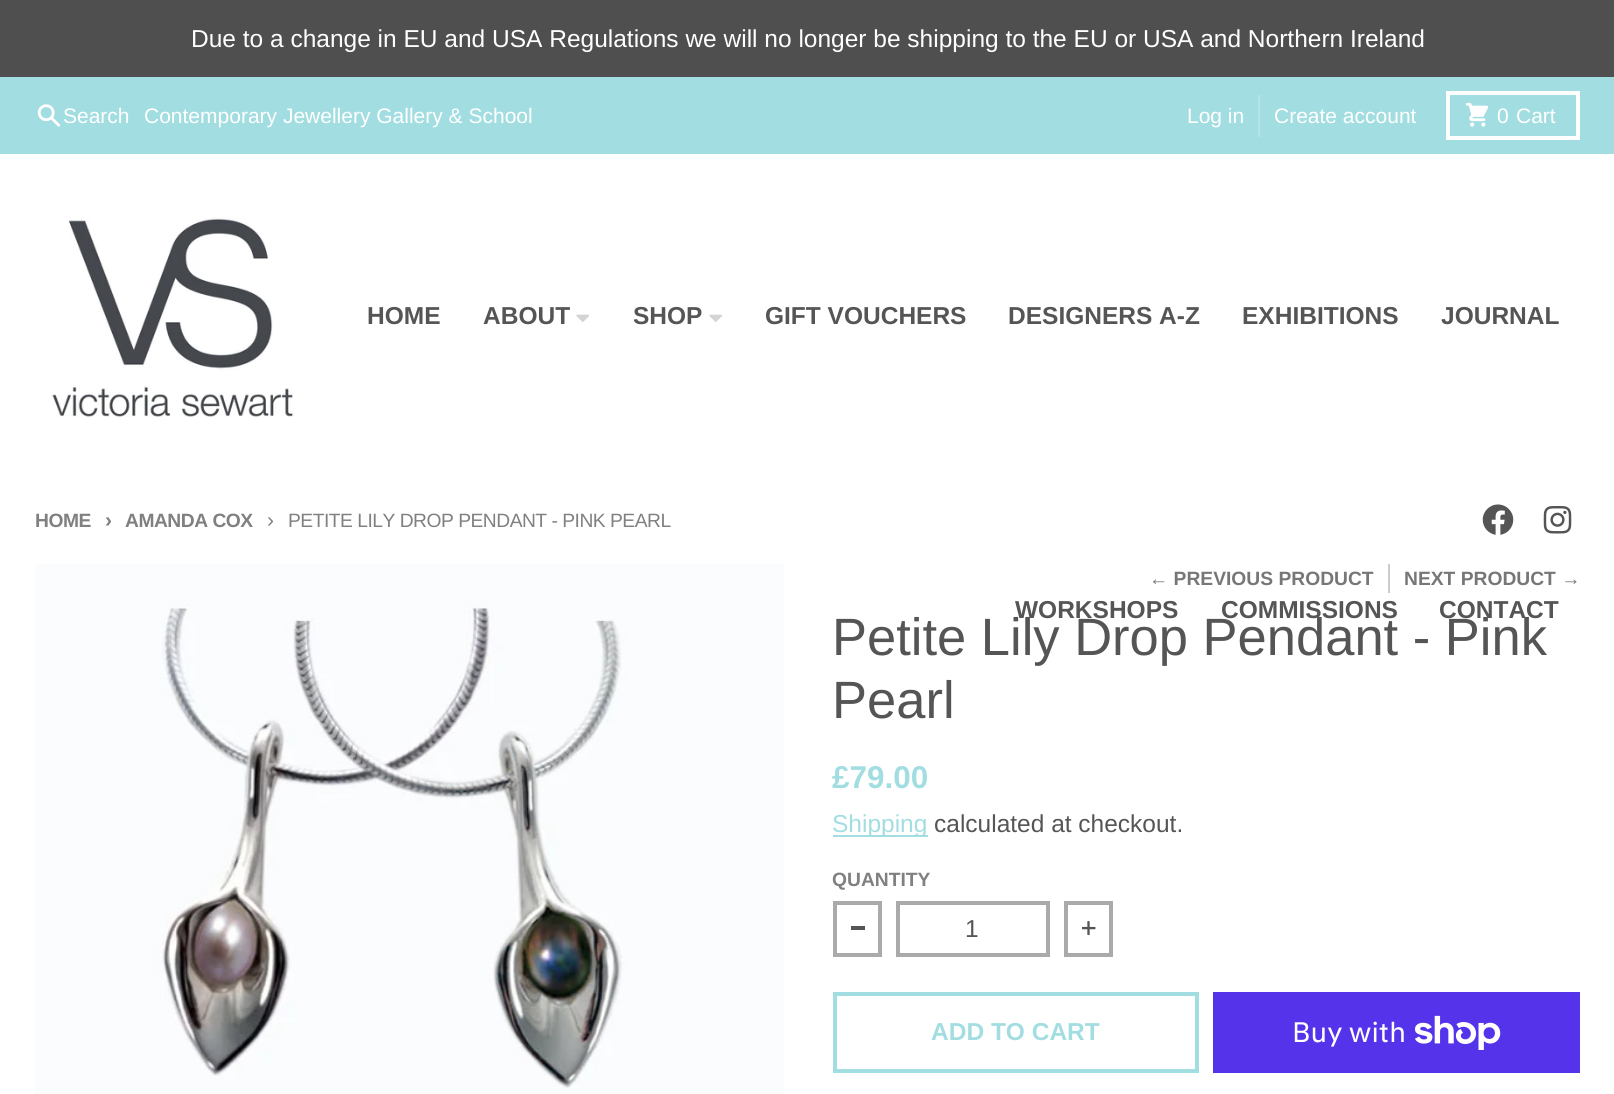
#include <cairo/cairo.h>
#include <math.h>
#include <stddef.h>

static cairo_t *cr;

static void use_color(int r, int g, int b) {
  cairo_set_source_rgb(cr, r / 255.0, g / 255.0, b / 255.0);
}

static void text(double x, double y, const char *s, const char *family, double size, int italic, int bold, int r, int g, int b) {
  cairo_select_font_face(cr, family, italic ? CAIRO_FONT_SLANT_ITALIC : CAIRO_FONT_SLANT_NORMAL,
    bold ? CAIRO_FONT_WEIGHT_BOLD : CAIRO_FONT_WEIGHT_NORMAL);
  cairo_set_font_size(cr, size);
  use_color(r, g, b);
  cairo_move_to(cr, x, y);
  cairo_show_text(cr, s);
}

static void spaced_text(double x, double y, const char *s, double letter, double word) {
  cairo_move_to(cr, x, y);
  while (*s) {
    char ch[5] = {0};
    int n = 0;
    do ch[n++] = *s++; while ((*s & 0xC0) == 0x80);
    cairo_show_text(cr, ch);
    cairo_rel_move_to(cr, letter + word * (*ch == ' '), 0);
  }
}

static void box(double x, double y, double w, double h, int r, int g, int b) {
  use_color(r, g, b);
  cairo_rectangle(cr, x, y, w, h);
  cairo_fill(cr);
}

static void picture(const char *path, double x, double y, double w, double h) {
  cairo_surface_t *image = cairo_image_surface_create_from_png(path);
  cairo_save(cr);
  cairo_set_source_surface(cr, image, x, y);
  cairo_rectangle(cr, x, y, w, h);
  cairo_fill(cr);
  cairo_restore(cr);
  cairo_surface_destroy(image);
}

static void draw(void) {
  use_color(255, 255, 255);
  cairo_paint(cr);
  box(0, 0, 1614, 77, 79, 79, 79);
  box(0, 77, 1614, 77, 162, 221, 225);
  picture("img_01.png", 37, 104, 24, 23);
  box(1258, 95, 2, 42, 181, 228, 231);
  cairo_rectangle(cr, 1448, 93, 130, 45);
  use_color(255, 255, 255);
  cairo_set_line_width(cr, 4);
  cairo_stroke(cr);
  picture("img_02.png", 1465, 102, 24, 25);
  picture("img_03.png", 52, 217, 242, 200);
  picture("img_04.png", 576, 314, 14, 8);
  picture("img_04.png", 709, 314, 14, 8);
  picture("img_05.png", 1482, 504, 32, 31);
  picture("img_06.png", 1543, 505, 29, 29);
  picture("img_07.png", 35, 564, 749, 530);
  box(1388, 564, 2, 29, 204, 204, 204);
  box(833, 835, 95, 2, 162, 221, 225);
  cairo_rectangle(cr, 835, 903, 45, 52);
  use_color(170, 170, 170);
  cairo_stroke(cr);
  box(851, 926, 14, 4, 85, 85, 85);
  cairo_rectangle(cr, 898, 903, 150, 52);
  use_color(170, 170, 170);
  cairo_stroke(cr);
  cairo_rectangle(cr, 1066, 903, 45, 52);
  cairo_stroke(cr);
  picture("img_08.png", 1082, 921, 14, 15);
  cairo_rectangle(cr, 835, 994, 362, 77);
  use_color(162, 221, 225);
  cairo_stroke(cr);
  box(1213, 992, 367, 81, 84, 51, 235);
  picture("img_09.png", 1415, 1015, 86, 35);
  text(191, 47, "Due to a change in EU and USA Regulations we will no longer be shipping to the EU or USA and Northern Ireland", "Liberation Sans", 24.5, 0, 0, 255, 255, 255);
  text(63, 123, "Search", "Liberation Sans", 21, 0, 0, 255, 255, 255);
  text(144, 123, "Contemporary Jewellery Gallery & School", "Liberation Sans", 21, 0, 0, 255, 255, 255);
  text(1187, 123, "Log in", "Liberation Sans", 21, 0, 0, 255, 255, 255);
  text(1274, 123, "Create account", "Liberation Sans", 21, 0, 0, 255, 255, 255);
  text(1497, 123, "0", "Liberation Sans", 21, 0, 0, 255, 255, 255);
  text(1516, 123, "Cart", "Liberation Sans", 21, 0, 0, 255, 255, 255);
  text(367, 324, "HOME", "Liberation Sans", 24.5, 0, 1, 85, 85, 85);
  text(483, 324, "ABOUT", "Liberation Sans", 24.5, 0, 1, 85, 85, 85);
  text(633, 324, "SHOP", "Liberation Sans", 24.5, 0, 1, 85, 85, 85);
  text(765, 324, "GIFT VOUCHERS", "Liberation Sans", 24.5, 0, 1, 85, 85, 85);
  text(1008, 324, "DESIGNERS A-Z", "Liberation Sans", 24.5, 0, 1, 85, 85, 85);
  text(1242, 324, "EXHIBITIONS", "Liberation Sans", 24.5, 0, 1, 85, 85, 85);
  text(1441, 324, "JOURNAL", "Liberation Sans", 24.5, 0, 1, 85, 85, 85);
  text(1015, 618, "WORKSHOPS", "Liberation Sans", 24.5, 0, 1, 85, 85, 85);
  text(1221, 618, "COMMISSIONS", "Liberation Sans", 24.5, 0, 1, 85, 85, 85);
  text(1439, 618, "CONTACT", "Liberation Sans", 24.5, 0, 1, 85, 85, 85);
  cairo_set_font_size(cr, 19.25);
  use_color(128, 128, 128);
  spaced_text(35, 527, "HOME", -0.5, 0);
  cairo_set_font_size(cr, 21);
  spaced_text(105, 527, "›", -0.5, 0);
  cairo_set_font_size(cr, 19.25);
  spaced_text(125, 527, "AMANDA COX", -0.5, 0);
  cairo_select_font_face(cr, "Liberation Sans", CAIRO_FONT_SLANT_NORMAL, CAIRO_FONT_WEIGHT_NORMAL);
  cairo_set_font_size(cr, 21);
  spaced_text(267, 527, "›", -0.5, 0);
  cairo_set_font_size(cr, 19.25);
  spaced_text(288, 527, "PETITE LILY DROP PENDANT - PINK PEARL", -0.5, 0);
  text(1149, 585, "← PREVIOUS PRODUCT", "Liberation Sans", 19.25, 0, 1, 119, 119, 119);
  text(1404, 585, "NEXT PRODUCT →", "Liberation Sans", 19.25, 0, 1, 119, 119, 119);
  text(832, 655, "Petite Lily Drop Pendant - Pink", "Liberation Sans", 52.5, 0, 0, 85, 85, 85);
  text(832, 718, "Pearl", "Liberation Sans", 52.5, 0, 0, 85, 85, 85);
  text(832, 788, "£79.00", "Liberation Sans", 31.5, 0, 1, 162, 221, 225);
  text(832, 832, "Shipping", "Liberation Sans", 24.5, 0, 0, 162, 221, 225);
  text(934, 832, "calculated at checkout.", "Liberation Sans", 24.5, 0, 0, 85, 85, 85);
  text(832, 886, "QUANTITY", "Liberation Sans", 19.25, 0, 1, 128, 128, 128);
  text(965, 937, "1", "Liberation Sans", 24.5, 0, 0, 85, 85, 85);
  text(931, 1040, "ADD TO CART", "Liberation Sans", 24.5, 0, 1, 162, 221, 225);
  text(1292, 1042, "Buy with", "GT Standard", 28, 0, 0, 255, 255, 255);
}

int main(void) {
  cairo_surface_t *surface = cairo_image_surface_create(CAIRO_FORMAT_RGB24, 1614, 1094);
  cr = cairo_create(surface);
  cairo_font_options_t *options = cairo_font_options_create();
  cairo_font_options_set_hint_metrics(options, CAIRO_HINT_METRICS_OFF);
  cairo_font_options_set_hint_style(options, CAIRO_HINT_STYLE_NONE);
  cairo_set_font_options(cr, options);
  cairo_set_miter_limit(cr, 4);
  draw();
  cairo_surface_write_to_png(surface, "out.png");
  cairo_font_options_destroy(options);
  cairo_destroy(cr);
  cairo_surface_destroy(surface);
  return 0;
}
